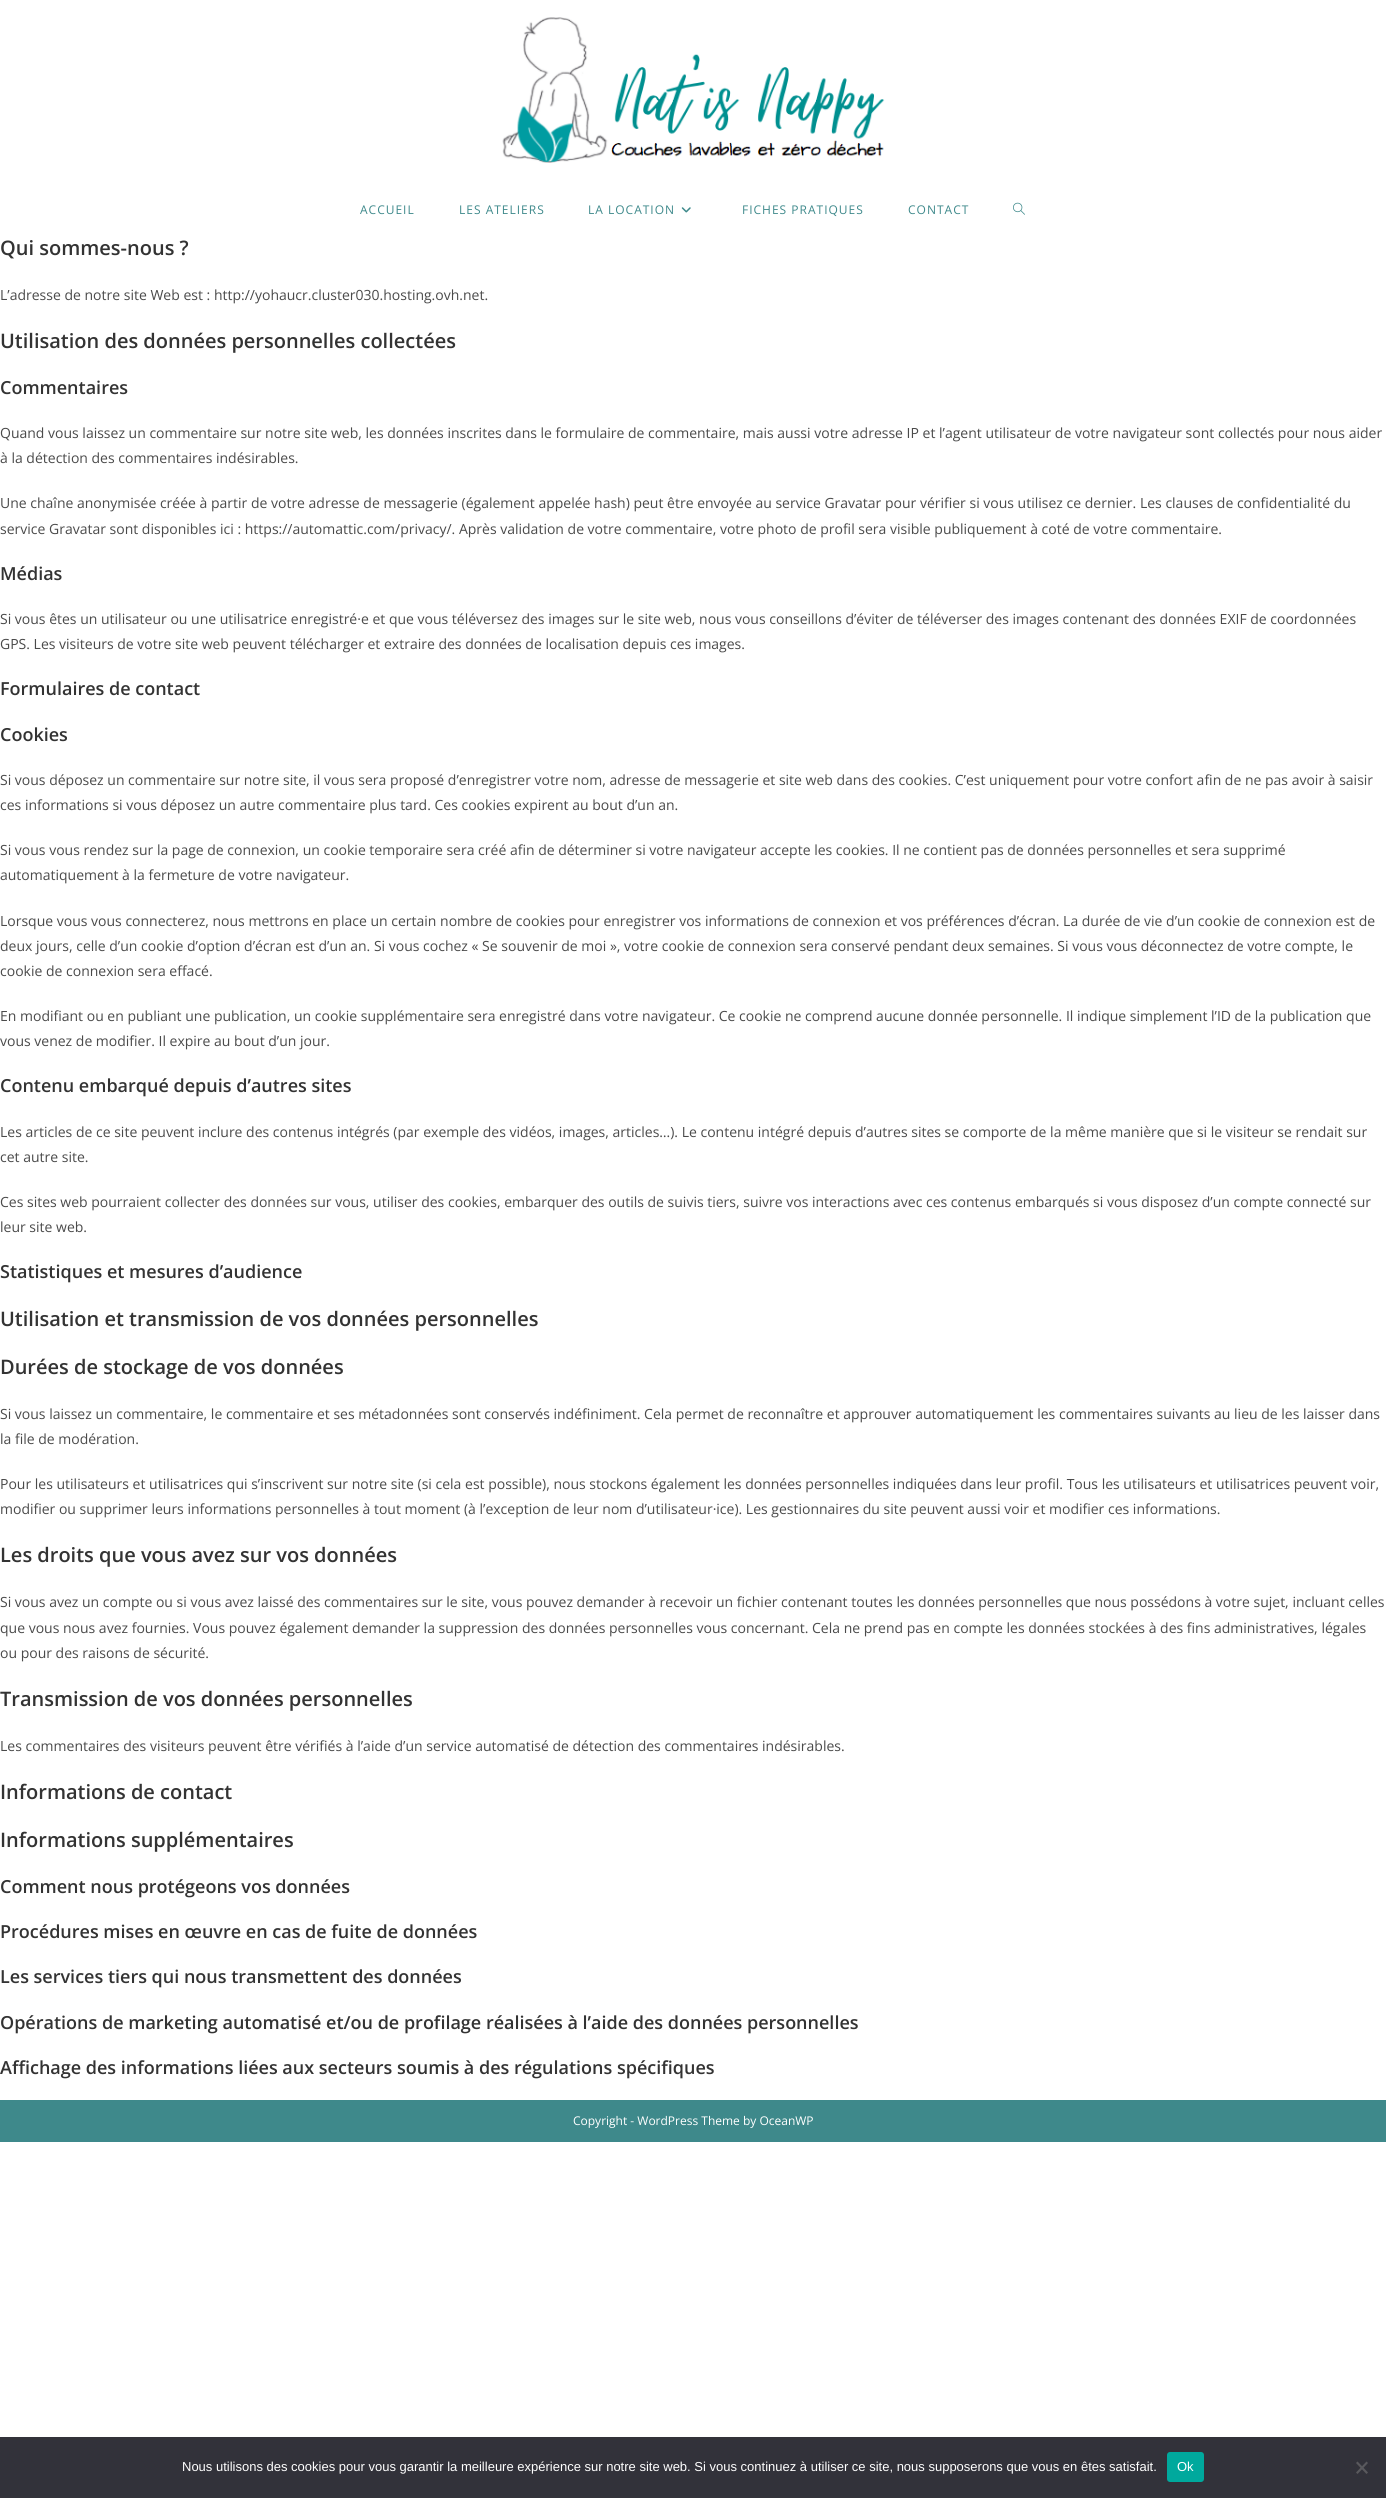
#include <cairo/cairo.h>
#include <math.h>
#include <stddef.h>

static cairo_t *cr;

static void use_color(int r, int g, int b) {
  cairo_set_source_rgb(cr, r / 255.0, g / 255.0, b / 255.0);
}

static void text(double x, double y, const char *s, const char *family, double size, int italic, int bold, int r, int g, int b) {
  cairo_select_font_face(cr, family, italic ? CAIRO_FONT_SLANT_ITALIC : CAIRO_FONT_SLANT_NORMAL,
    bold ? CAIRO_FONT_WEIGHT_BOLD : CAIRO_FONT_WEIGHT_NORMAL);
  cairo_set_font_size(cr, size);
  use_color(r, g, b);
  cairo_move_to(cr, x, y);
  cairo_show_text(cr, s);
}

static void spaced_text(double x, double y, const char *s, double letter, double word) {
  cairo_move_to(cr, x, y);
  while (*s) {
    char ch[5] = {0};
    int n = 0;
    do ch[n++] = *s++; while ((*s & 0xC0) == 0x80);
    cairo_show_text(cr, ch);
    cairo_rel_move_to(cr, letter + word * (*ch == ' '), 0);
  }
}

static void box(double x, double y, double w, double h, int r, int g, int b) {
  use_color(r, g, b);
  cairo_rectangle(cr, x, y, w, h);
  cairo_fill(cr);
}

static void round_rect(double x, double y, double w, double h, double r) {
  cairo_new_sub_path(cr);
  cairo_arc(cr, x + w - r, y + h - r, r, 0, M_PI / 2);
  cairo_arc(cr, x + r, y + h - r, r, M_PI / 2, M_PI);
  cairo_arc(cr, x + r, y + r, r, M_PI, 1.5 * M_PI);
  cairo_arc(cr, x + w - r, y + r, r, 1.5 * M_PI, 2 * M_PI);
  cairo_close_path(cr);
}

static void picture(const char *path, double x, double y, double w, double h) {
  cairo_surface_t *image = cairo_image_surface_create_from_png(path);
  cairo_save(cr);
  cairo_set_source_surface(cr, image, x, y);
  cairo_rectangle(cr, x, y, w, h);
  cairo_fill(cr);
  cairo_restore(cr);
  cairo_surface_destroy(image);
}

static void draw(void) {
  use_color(255, 255, 255);
  cairo_paint(cr);
  picture("img_01.png", 502, 17, 383, 146);
  picture("img_02.png", 681, 207, 10, 6);
  picture("img_03.png", 1013, 202, 12, 13);
  box(0, 2100, 1386, 42, 62, 137, 139);
  box(0, 2437, 1386, 61, 50, 50, 58);
  use_color(0, 169, 157);
  round_rect(1167, 2452, 37, 30, 3);
  cairo_fill(cr);
  use_color(89, 89, 93);
  cairo_new_path(cr);
  cairo_move_to(cr, 1366.5, 2461.5);
  cairo_line_to(cr, 1368, 2463);
  cairo_line_to(cr, 1357.5, 2474);
  cairo_line_to(cr, 1356, 2472.5);
  cairo_close_path(cr);
  cairo_fill(cr);
  cairo_new_path(cr);
  cairo_move_to(cr, 1356, 2463);
  cairo_line_to(cr, 1357.5, 2461.5);
  cairo_line_to(cr, 1368, 2472.5);
  cairo_line_to(cr, 1366.5, 2474);
  cairo_close_path(cr);
  cairo_fill(cr);
  cairo_select_font_face(cr, "Open Sans", CAIRO_FONT_SLANT_NORMAL, CAIRO_FONT_WEIGHT_NORMAL);
  cairo_set_font_size(cr, 12);
  use_color(62, 137, 139);
  spaced_text(360, 214, "ACCUEIL", 1, 0);
  spaced_text(459, 214, "LES ATELIERS", 1, 0);
  spaced_text(588, 214, "LA LOCATION", 1, 0);
  spaced_text(742, 214, "FICHES PRATIQUES", 1, 0);
  spaced_text(908, 214, "CONTACT", 1, 0);
  text(0, 255, "Qui sommes-nous ?", "Open Sans SemiBold", 20, 0, 0, 51, 51, 51);
  text(0, 300, "L’adresse de notre site Web est : http://yohaucr.cluster030.hosting.ovh.net.", "Open Sans", 14, 0, 0, 74, 74, 74);
  text(0, 348, "Utilisation des données personnelles collectées", "Open Sans SemiBold", 20, 0, 0, 51, 51, 51);
  text(0, 394, "Commentaires", "Open Sans SemiBold", 18, 0, 0, 51, 51, 51);
  text(0, 438, "Quand vous laissez un commentaire sur notre site web, les données inscrites dans le formulaire de commentaire, mais aussi votre adresse IP et l’agent utilisateur de votre navigateur sont collectés pour nous aider", "Open Sans", 14, 0, 0, 74, 74, 74);
  text(0, 463, "à la détection des commentaires indésirables.", "Open Sans", 14, 0, 0, 74, 74, 74);
  text(0, 508, "Une chaîne anonymisée créée à partir de votre adresse de messagerie (également appelée hash) peut être envoyée au service Gravatar pour vérifier si vous utilisez ce dernier. Les clauses de confidentialité du", "Open Sans", 14, 0, 0, 74, 74, 74);
  text(0, 534, "service Gravatar sont disponibles ici : https://automattic.com/privacy/. Après validation de votre commentaire, votre photo de profil sera visible publiquement à coté de votre commentaire.", "Open Sans", 14, 0, 0, 74, 74, 74);
  text(0, 580, "Médias", "Open Sans SemiBold", 18, 0, 0, 51, 51, 51);
  text(0, 624, "Si vous êtes un utilisateur ou une utilisatrice enregistré·e et que vous téléversez des images sur le site web, nous vous conseillons d’éviter de téléverser des images contenant des données EXIF de coordonnées", "Open Sans", 14, 0, 0, 74, 74, 74);
  text(0, 649, "GPS. Les visiteurs de votre site web peuvent télécharger et extraire des données de localisation depuis ces images.", "Open Sans", 14, 0, 0, 74, 74, 74);
  text(0, 695, "Formulaires de contact", "Open Sans SemiBold", 18, 0, 0, 51, 51, 51);
  text(0, 741, "Cookies", "Open Sans SemiBold", 18, 0, 0, 51, 51, 51);
  text(0, 785, "Si vous déposez un commentaire sur notre site, il vous sera proposé d’enregistrer votre nom, adresse de messagerie et site web dans des cookies. C’est uniquement pour votre confort afin de ne pas avoir à saisir", "Open Sans", 14, 0, 0, 74, 74, 74);
  text(0, 810, "ces informations si vous déposez un autre commentaire plus tard. Ces cookies expirent au bout d’un an.", "Open Sans", 14, 0, 0, 74, 74, 74);
  text(0, 855, "Si vous vous rendez sur la page de connexion, un cookie temporaire sera créé afin de déterminer si votre navigateur accepte les cookies. Il ne contient pas de données personnelles et sera supprimé", "Open Sans", 14, 0, 0, 74, 74, 74);
  text(0, 880, "automatiquement à la fermeture de votre navigateur.", "Open Sans", 14, 0, 0, 74, 74, 74);
  text(0, 926, "Lorsque vous vous connecterez, nous mettrons en place un certain nombre de cookies pour enregistrer vos informations de connexion et vos préférences d’écran. La durée de vie d’un cookie de connexion est de", "Open Sans", 14, 0, 0, 74, 74, 74);
  text(0, 951, "deux jours, celle d’un cookie d’option d’écran est d’un an. Si vous cochez « Se souvenir de moi », votre cookie de connexion sera conservé pendant deux semaines. Si vous vous déconnectez de votre compte, le", "Open Sans", 14, 0, 0, 74, 74, 74);
  text(0, 976, "cookie de connexion sera effacé.", "Open Sans", 14, 0, 0, 74, 74, 74);
  text(0, 1021, "En modifiant ou en publiant une publication, un cookie supplémentaire sera enregistré dans votre navigateur. Ce cookie ne comprend aucune donnée personnelle. Il indique simplement l’ID de la publication que", "Open Sans", 14, 0, 0, 74, 74, 74);
  text(0, 1046, "vous venez de modifier. Il expire au bout d’un jour.", "Open Sans", 14, 0, 0, 74, 74, 74);
  text(0, 1092, "Contenu embarqué depuis d’autres sites", "Open Sans SemiBold", 18, 0, 0, 51, 51, 51);
  text(0, 1137, "Les articles de ce site peuvent inclure des contenus intégrés (par exemple des vidéos, images, articles…). Le contenu intégré depuis d’autres sites se comporte de la même manière que si le visiteur se rendait sur", "Open Sans", 14, 0, 0, 74, 74, 74);
  text(0, 1162, "cet autre site.", "Open Sans", 14, 0, 0, 74, 74, 74);
  text(0, 1207, "Ces sites web pourraient collecter des données sur vous, utiliser des cookies, embarquer des outils de suivis tiers, suivre vos interactions avec ces contenus embarqués si vous disposez d’un compte connecté sur", "Open Sans", 14, 0, 0, 74, 74, 74);
  text(0, 1232, "leur site web.", "Open Sans", 14, 0, 0, 74, 74, 74);
  text(0, 1278, "Statistiques et mesures d’audience", "Open Sans SemiBold", 18, 0, 0, 51, 51, 51);
  text(0, 1326, "Utilisation et transmission de vos données personnelles", "Open Sans SemiBold", 20, 0, 0, 51, 51, 51);
  text(0, 1374, "Durées de stockage de vos données", "Open Sans SemiBold", 20, 0, 0, 51, 51, 51);
  text(0, 1419, "Si vous laissez un commentaire, le commentaire et ses métadonnées sont conservés indéfiniment. Cela permet de reconnaître et approuver automatiquement les commentaires suivants au lieu de les laisser dans", "Open Sans", 14, 0, 0, 74, 74, 74);
  text(0, 1444, "la file de modération.", "Open Sans", 14, 0, 0, 74, 74, 74);
  text(0, 1489, "Pour les utilisateurs et utilisatrices qui s’inscrivent sur notre site (si cela est possible), nous stockons également les données personnelles indiquées dans leur profil. Tous les utilisateurs et utilisatrices peuvent voir,", "Open Sans", 14, 0, 0, 74, 74, 74);
  text(0, 1514, "modifier ou supprimer leurs informations personnelles à tout moment (à l’exception de leur nom d’utilisateur·ice). Les gestionnaires du site peuvent aussi voir et modifier ces informations.", "Open Sans", 14, 0, 0, 74, 74, 74);
  text(0, 1562, "Les droits que vous avez sur vos données", "Open Sans SemiBold", 20, 0, 0, 51, 51, 51);
  text(0, 1607, "Si vous avez un compte ou si vous avez laissé des commentaires sur le site, vous pouvez demander à recevoir un fichier contenant toutes les données personnelles que nous possédons à votre sujet, incluant celles", "Open Sans", 14, 0, 0, 74, 74, 74);
  text(0, 1633, "que vous nous avez fournies. Vous pouvez également demander la suppression des données personnelles vous concernant. Cela ne prend pas en compte les données stockées à des fins administratives, légales", "Open Sans", 14, 0, 0, 74, 74, 74);
  text(0, 1658, "ou pour des raisons de sécurité.", "Open Sans", 14, 0, 0, 74, 74, 74);
  text(0, 1706, "Transmission de vos données personnelles", "Open Sans SemiBold", 20, 0, 0, 51, 51, 51);
  text(0, 1751, "Les commentaires des visiteurs peuvent être vérifiés à l’aide d’un service automatisé de détection des commentaires indésirables.", "Open Sans", 14, 0, 0, 74, 74, 74);
  text(0, 1799, "Informations de contact", "Open Sans SemiBold", 20, 0, 0, 51, 51, 51);
  text(0, 1847, "Informations supplémentaires", "Open Sans SemiBold", 20, 0, 0, 51, 51, 51);
  text(0, 1893, "Comment nous protégeons vos données", "Open Sans SemiBold", 18, 0, 0, 51, 51, 51);
  text(0, 1938, "Procédures mises en œuvre en cas de fuite de données", "Open Sans SemiBold", 18, 0, 0, 51, 51, 51);
  text(0, 1983, "Les services tiers qui nous transmettent des données", "Open Sans SemiBold", 18, 0, 0, 51, 51, 51);
  text(0, 2029, "Opérations de marketing automatisé et/ou de profilage réalisées à l’aide des données personnelles", "Open Sans SemiBold", 18, 0, 0, 51, 51, 51);
  text(0, 2074, "Affichage des informations liées aux secteurs soumis à des régulations spécifiques", "Open Sans SemiBold", 18, 0, 0, 51, 51, 51);
  text(573, 2125, "Copyright - WordPress Theme by OceanWP", "Open Sans", 12, 0, 0, 255, 255, 255);
  text(182, 2471, "Nous utilisons des cookies pour vous garantir la meilleure expérience sur notre site web. Si vous continuez à utiliser ce site, nous supposerons que vous en êtes satisfait.", "Liberation Sans", 13, 0, 0, 255, 255, 255);
  text(1177, 2471, "Ok", "Liberation Sans", 13, 0, 0, 255, 255, 255);
}

int main(void) {
  cairo_surface_t *surface = cairo_image_surface_create(CAIRO_FORMAT_RGB24, 1386, 2498);
  cr = cairo_create(surface);
  cairo_font_options_t *options = cairo_font_options_create();
  cairo_font_options_set_hint_metrics(options, CAIRO_HINT_METRICS_OFF);
  cairo_font_options_set_hint_style(options, CAIRO_HINT_STYLE_NONE);
  cairo_set_font_options(cr, options);
  cairo_set_miter_limit(cr, 4);
  draw();
  cairo_surface_write_to_png(surface, "out.png");
  cairo_font_options_destroy(options);
  cairo_destroy(cr);
  cairo_surface_destroy(surface);
  return 0;
}
